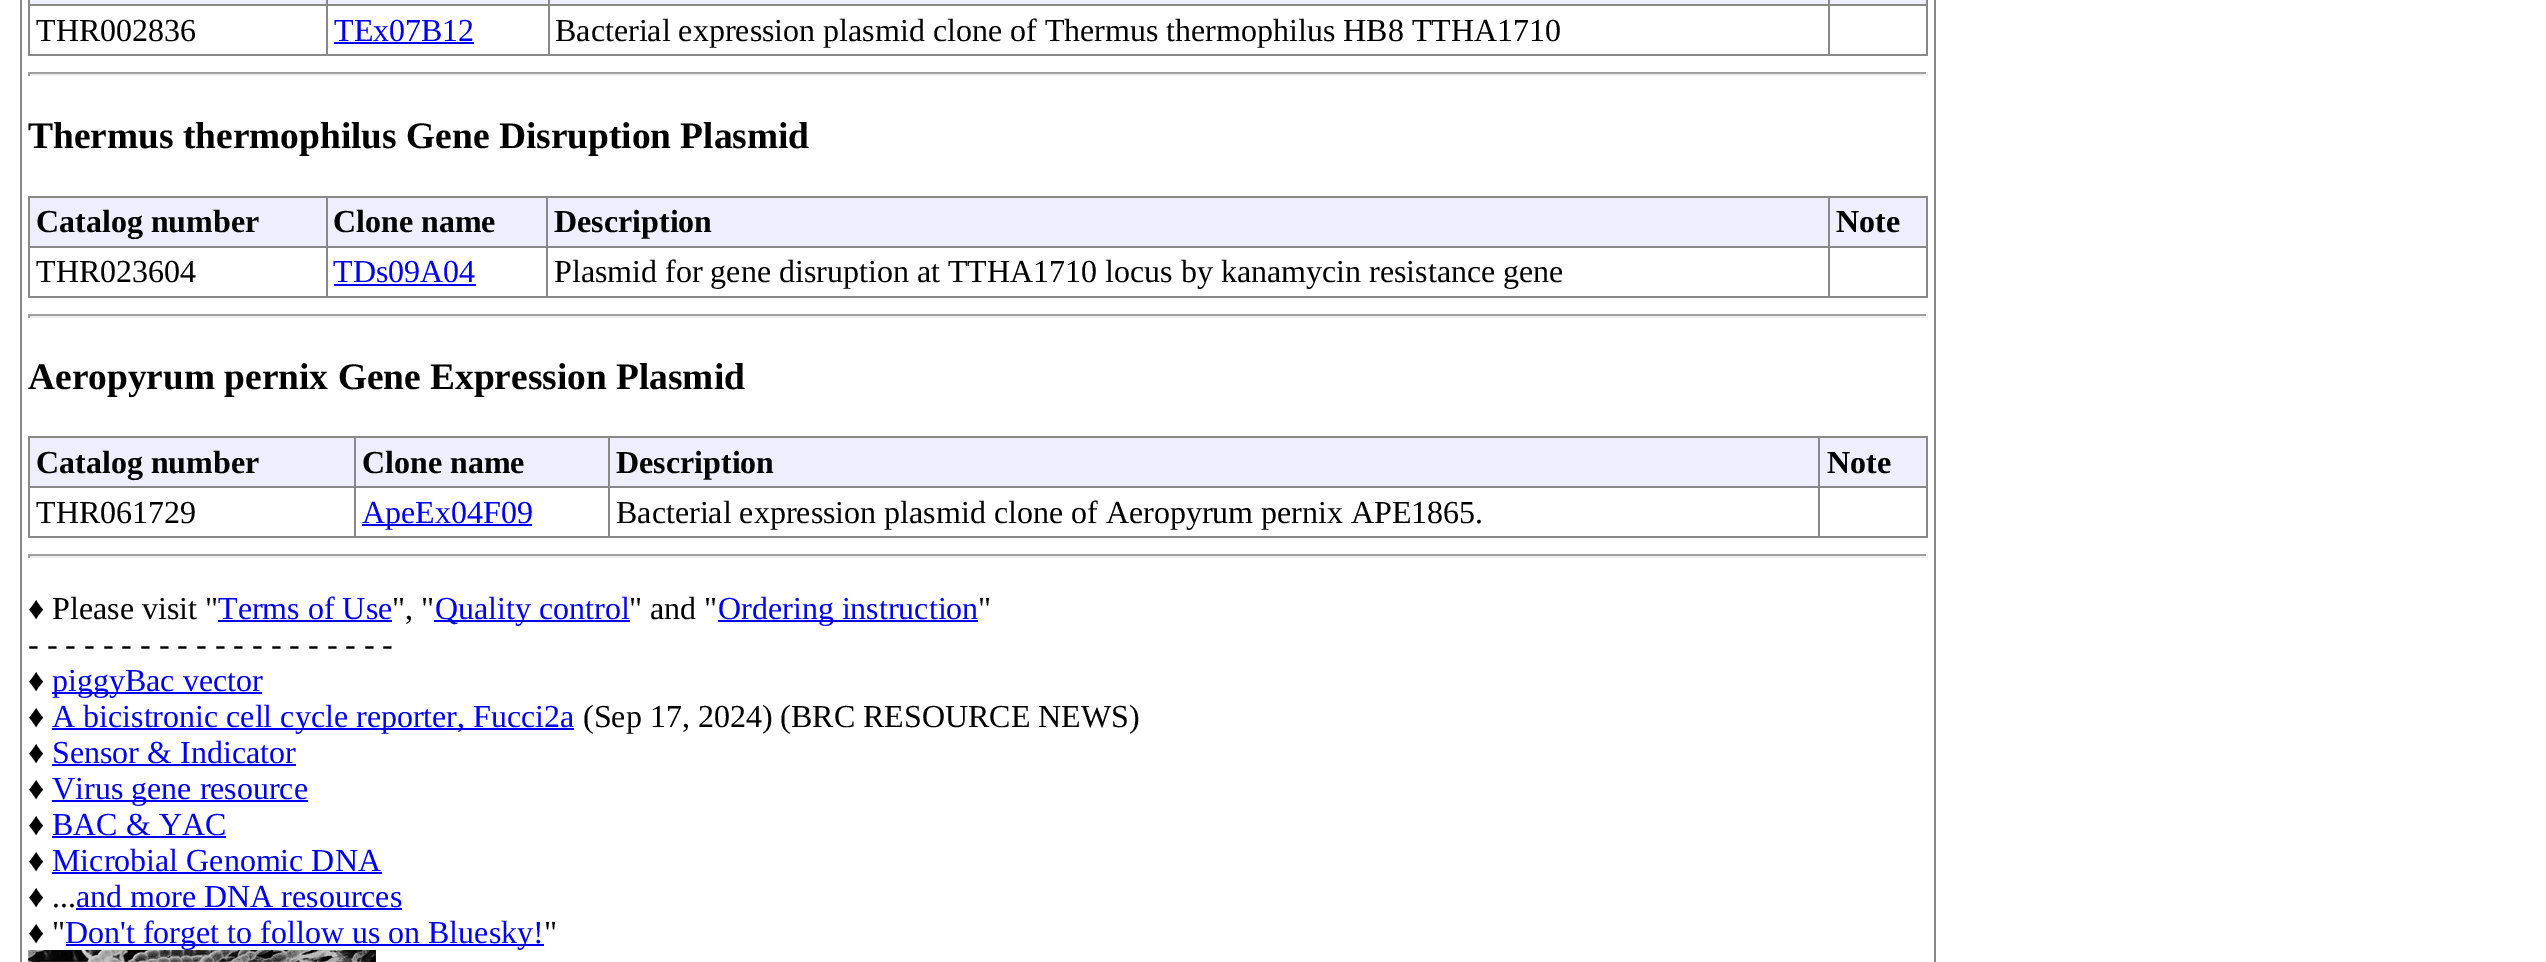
%!PS-Adobe-3.0
%%BoundingBox: 0 0 2546 962
%%LanguageLevel: 3
%%Pages: 1
%%EndComments
%%BeginProlog
/drawimage { 5 dict begin { /h /w /y /x /name } { exch def } forall
  gsave x y translate w h scale
  w h 8 [w 0 0 h 0 0] name (r) file false 3 colorimage grestore end } def
%%EndProlog
%%BeginSetup
<< /PageSize [2546 962] >> setpagedevice
%%EndSetup
%%Page: 1 1
0 962 translate 1 -1 scale
4 setmiterlimit
1 setgray
0 0 2546 962 rectfill
0.533 setgray
1934 0 2 962 rectfill
20 0 2 962 rectfill
0.933 0.933 1 setrgbcolor
30 0 1898 4 rectfill
0.533 setgray
1926 0 2 56 rectfill
28 54 1900 2 rectfill
28 0 2 56 rectfill
1828 4 100 2 rectfill
1828 4 2 52 rectfill
548 4 1282 2 rectfill
548 4 2 52 rectfill
326 4 224 2 rectfill
326 4 2 52 rectfill
28 4 300 2 rectfill
326 0 2 6 rectfill
548 0 2 6 rectfill
1828 0 2 6 rectfill
0 0 0.933 setrgbcolor
334 42 140 2 rectfill
0.624 setgray
28 72 1900 2 rectfill
0.933 setgray
1926 72 2 4 rectfill
28 74 1900 2 rectfill
0.624 setgray
28 72 2 4 rectfill
0.533 setgray
28 196 1900 2 rectfill
1926 196 2 102 rectfill
28 296 1900 2 rectfill
28 196 2 102 rectfill
0.933 0.933 1 setrgbcolor
30 198 296 48 rectfill
328 198 218 48 rectfill
0.533 setgray
1828 246 100 2 rectfill
1828 246 2 52 rectfill
546 246 1284 2 rectfill
546 246 2 52 rectfill
326 246 222 2 rectfill
326 246 2 52 rectfill
28 246 300 2 rectfill
326 196 2 52 rectfill
0.933 0.933 1 setrgbcolor
548 198 1280 48 rectfill
0.533 setgray
546 196 2 52 rectfill
0.933 0.933 1 setrgbcolor
1830 198 96 48 rectfill
0.533 setgray
1828 196 2 52 rectfill
0 0 0.933 setrgbcolor
334 284 142 2 rectfill
0.624 setgray
28 314 1900 2 rectfill
0.933 setgray
1926 314 2 4 rectfill
28 316 1900 2 rectfill
0.624 setgray
28 314 2 4 rectfill
0.533 setgray
28 436 1900 2 rectfill
1926 436 2 102 rectfill
28 536 1900 2 rectfill
28 436 2 102 rectfill
0.933 0.933 1 setrgbcolor
30 438 324 48 rectfill
356 438 252 48 rectfill
0.533 setgray
1818 486 110 2 rectfill
1818 486 2 52 rectfill
608 486 1212 2 rectfill
608 486 2 52 rectfill
354 486 256 2 rectfill
354 486 2 52 rectfill
28 486 328 2 rectfill
354 436 2 52 rectfill
0.933 0.933 1 setrgbcolor
610 438 1208 48 rectfill
0.533 setgray
608 436 2 52 rectfill
0.933 0.933 1 setrgbcolor
1820 438 106 48 rectfill
0.533 setgray
1818 436 2 52 rectfill
0 0 0.933 setrgbcolor
362 524 170 2 rectfill
0.624 setgray
28 554 1900 2 rectfill
0.933 setgray
1926 554 2 4 rectfill
28 556 1900 2 rectfill
0.624 setgray
28 554 2 4 rectfill
0 0 0.933 setrgbcolor
218 620 174 2 rectfill
434 620 196 2 rectfill
718 620 260 2 rectfill
52 692 210 2 rectfill
52 728 522 2 rectfill
52 764 244 2 rectfill
52 800 256 2 rectfill
52 836 174 2 rectfill
52 872 330 2 rectfill
76 908 326 2 rectfill
66 944 478 2 rectfill
(images/1.raw) 28 950 348 12 drawimage
/LiberationSerif-Regular [32 0 0 -32 0 0] selectfont
0 setgray
36 41 moveto (THR002836) show
0 0 0.933 setrgbcolor
334 41 moveto (TEx07B12) show
0 setgray
555 41 moveto (Bacterial expression plasmid clone of Thermus thermophilus HB8 TTHA1710) show
/LiberationSerif-Bold [37.4 0 0 -37.4 0 0] selectfont
28 148 moveto (Thermus thermophilus Gene Disruption Plasmid) show
/LiberationSerif-Bold [32 0 0 -32 0 0] selectfont
36 232 moveto (Catalog number) show
333 232 moveto (Clone name) show
554 232 moveto (Description) show
1836 232 moveto (Note) show
/LiberationSerif-Regular [32 0 0 -32 0 0] selectfont
36 282 moveto (THR023604) show
0 0 0.933 setrgbcolor
333 282 moveto (TDs09A04) show
0 setgray
554 282 moveto (Plasmid for gene disruption at TTHA1710 locus by kanamycin resistance gene) show
/LiberationSerif-Bold [37.4 0 0 -37.4 0 0] selectfont
28 389 moveto (Aeropyrum pernix Gene Expression Plasmid) show
/LiberationSerif-Bold [32 0 0 -32 0 0] selectfont
36 473 moveto (Catalog number) show
362 473 moveto (Clone name) show
616 473 moveto (Description) show
1827 473 moveto (Note) show
/LiberationSerif-Regular [32 0 0 -32 0 0] selectfont
36 523 moveto (THR061729) show
0 0 0.933 setrgbcolor
362 523 moveto (ApeEx04F09) show
0 setgray
616 523 moveto (Bacterial expression plasmid clone of Aeropyrum pernix APE1865.) show
28 619 moveto (♦ Please visit ") show
0 0 0.933 setrgbcolor
218 619 moveto (Terms of Use) show
0 setgray
392 619 moveto (", ") show
0 0 0.933 setrgbcolor
435 619 moveto (Quality control) show
0 setgray
629 619 moveto (" and ") show
0 0 0.933 setrgbcolor
718 619 moveto (Ordering instruction) show
0 setgray
978 619 moveto (") show
28 655 moveto (- - - - - - - - - - - - - - - - - - - -) show
28 691 moveto (♦) show
0 0 0.933 setrgbcolor
52 691 moveto (piggyBac vector) show
0 setgray
28 727 moveto (♦) show
0 0 0.933 setrgbcolor
52 727 moveto (A bicistronic cell cycle reporter, Fucci2a) show
0 setgray
583 727 moveto (\(Sep 17, 2024\) \(BRC RESOURCE NEWS\)) show
28 763 moveto (♦) show
0 0 0.933 setrgbcolor
52 763 moveto (Sensor & Indicator) show
0 setgray
28 799 moveto (♦) show
0 0 0.933 setrgbcolor
52 799 moveto (Virus gene resource) show
0 setgray
28 835 moveto (♦) show
0 0 0.933 setrgbcolor
52 835 moveto (BAC & YAC) show
0 setgray
28 871 moveto (♦) show
0 0 0.933 setrgbcolor
52 871 moveto (Microbial Genomic DNA) show
0 setgray
28 907 moveto (♦ ...) show
0 0 0.933 setrgbcolor
76 907 moveto (and more DNA resources) show
0 setgray
28 943 moveto (♦ ") show
0 0 0.933 setrgbcolor
65 943 moveto (Don't forget to follow us on Bluesky!) show
0 setgray
544 943 moveto (") show
showpage
%%EOF
